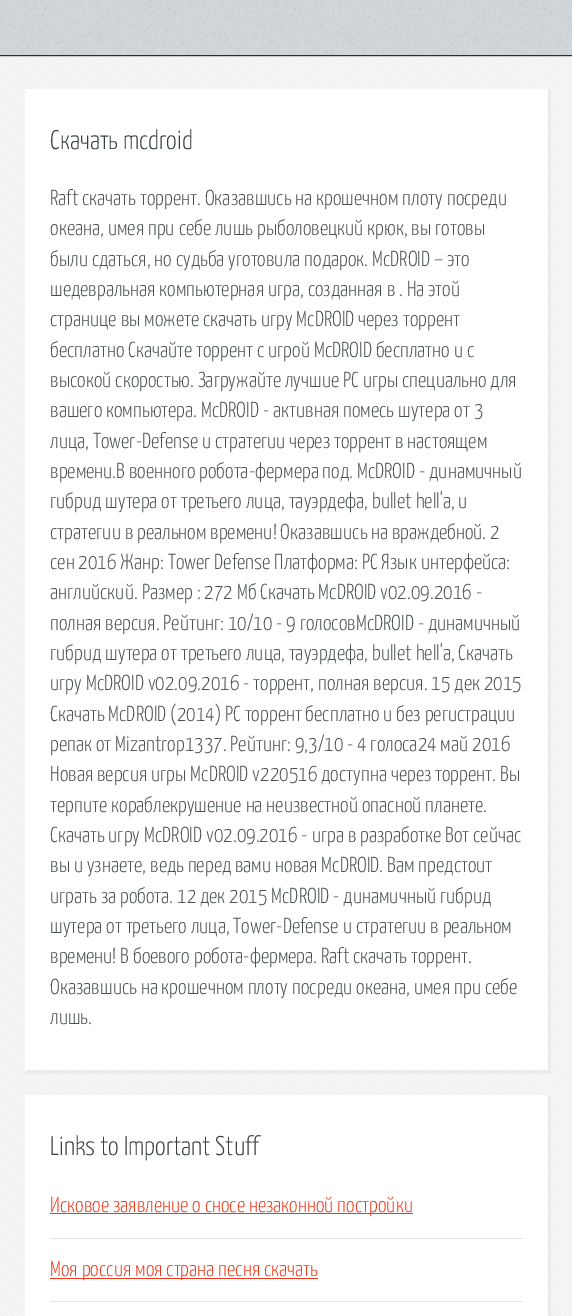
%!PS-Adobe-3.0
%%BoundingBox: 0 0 572 1316
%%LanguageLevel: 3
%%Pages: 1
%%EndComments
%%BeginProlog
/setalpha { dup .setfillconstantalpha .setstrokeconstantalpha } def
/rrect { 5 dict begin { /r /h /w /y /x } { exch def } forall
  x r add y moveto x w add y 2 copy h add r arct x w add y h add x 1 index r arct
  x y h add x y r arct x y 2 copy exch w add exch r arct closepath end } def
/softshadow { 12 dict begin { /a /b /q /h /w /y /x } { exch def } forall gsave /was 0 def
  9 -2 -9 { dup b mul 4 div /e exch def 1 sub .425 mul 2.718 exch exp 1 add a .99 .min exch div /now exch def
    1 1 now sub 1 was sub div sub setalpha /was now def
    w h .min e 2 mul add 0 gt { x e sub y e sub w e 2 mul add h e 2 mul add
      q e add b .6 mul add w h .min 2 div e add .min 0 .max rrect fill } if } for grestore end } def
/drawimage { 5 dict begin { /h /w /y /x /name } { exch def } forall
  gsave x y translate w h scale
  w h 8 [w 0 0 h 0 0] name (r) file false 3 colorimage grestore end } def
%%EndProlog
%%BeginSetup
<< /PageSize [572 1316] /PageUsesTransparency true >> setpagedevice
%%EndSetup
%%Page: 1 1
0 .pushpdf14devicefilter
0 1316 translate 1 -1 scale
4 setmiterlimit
1 setgray
0 0 572 1316 rectfill
(images/1.raw) 0 0 572 55 drawimage
(images/2.raw) 0 56 572 1 drawimage
0.153 0.176 0.188 setrgbcolor
0 55 572 1 rectfill
0.969 setgray
0 57 572 1259 rectfill
(images/3.raw) 0 57 572 1259 drawimage
0.502 setgray
26 90 525 984 0 1 0.1 softshadow
1 setgray
25 89 523 981 rectfill
0.502 setgray
26 1096 525 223 0 1 0.1 softshadow
1 setgray
25 1095 523 221 rectfill
0.886 0.902 0.91 setrgbcolor
50 1238 473 1 rectfill
0.929 0.224 0.106 setrgbcolor
50 1213 363 1 rectfill
0.886 0.902 0.91 setrgbcolor
50 1301 473 1 rectfill
0.929 0.224 0.106 setrgbcolor
50 1278 268 1 rectfill
/YanoneKaffeesatz-Light [27 0 0 -27 0 0] selectfont
0.216 0.247 0.259 setrgbcolor
50 149 moveto (Скачать mcdroid) show
/YanoneKaffeesatz-Light [21.7 0 0 -21.7 0 0] selectfont
0.278 0.31 0.318 setrgbcolor
50 205 moveto (Raft скачать торрент. Оказавшись на крошечном плоту посреди) show
50 235 moveto (океана, имея при себе лишь рыболовецкий крюк, вы готовы) show
50 266 moveto (были сдаться, но судьба уготовила подарок. McDROID – это) show
50 296 moveto (шедевральная компьютерная игра, созданная в . На этой) show
50 326 moveto (странице вы можете скачать игру McDROID через торрент) show
50 357 moveto (бесплатно Скачайте торрент с игрой McDROID бесплатно и с) show
50 387 moveto (высокой скоростью. Загружайте лучшие PC игры специально для) show
50 417 moveto (вашего компьютера. McDROID - активная помесь шутера от 3) show
50 448 moveto (лица, Tower-Defense и стратегии через торрент в настоящем) show
50 478 moveto (времени.В военного робота-фермера под. McDROID - динамичный) show
50 508 moveto (гибрид шутера от третьего лица, тауэрдефа, bullet hell'а, и) show
50 539 moveto (стратегии в реальном времени! Оказавшись на враждебной. 2) show
50 569 moveto (сен 2016 Жанр: Tower Defense Платформа: PC Язык интерфейса:) show
50 599 moveto (английский. Размер : 272 Мб Скачать McDROID v02.09.2016 -) show
50 630 moveto (полная версия. Рейтинг: 10/10 - 9 голосовMcDROID - динамичный) show
50 660 moveto (гибрид шутера от третьего лица, тауэрдефа, bullet hell'а, Скачать) show
50 690 moveto (игру McDROID v02.09.2016 - торрент, полная версия. 15 дек 2015) show
50 721 moveto (Скачать McDROID \(2014\) PC торрент бесплатно и без регистрации) show
50 751 moveto (репак от Mizantrop1337. Рейтинг: 9,3/10 - 4 голоса24 май 2016) show
50 781 moveto (Новая версия игры McDROID v220516 доступна через торрент. Вы) show
50 812 moveto (терпите кораблекрушение на неизвестной опасной планете.) show
50 842 moveto (Скачать игру McDROID v02.09.2016 - игра в разработке Вот сейчас) show
50 872 moveto (вы и узнаете, ведь перед вами новая McDROID. Вам предстоит) show
50 903 moveto (играть за робота. 12 дек 2015 McDROID - динамичный гибрид) show
50 933 moveto (шутера от третьего лица, Tower-Defense и стратегии в реальном) show
50 963 moveto (времени! В боевого робота-фермера. Raft скачать торрент.) show
50 994 moveto (Оказавшись на крошечном плоту посреди океана, имея при себе) show
50 1024 moveto (лишь.) show
/YanoneKaffeesatz-Light [27 0 0 -27 0 0] selectfont
0.216 0.247 0.259 setrgbcolor
50 1155 moveto (Links to Important Stuff) show
/YanoneKaffeesatz-Light [21.7 0 0 -21.7 0 0] selectfont
0.929 0.224 0.106 setrgbcolor
50 1212 moveto (Исковое заявление о сносе незаконной постройки) show
50 1276 moveto (Моя россия моя страна песня скачать) show
.poppdf14devicefilter showpage
%%EOF
